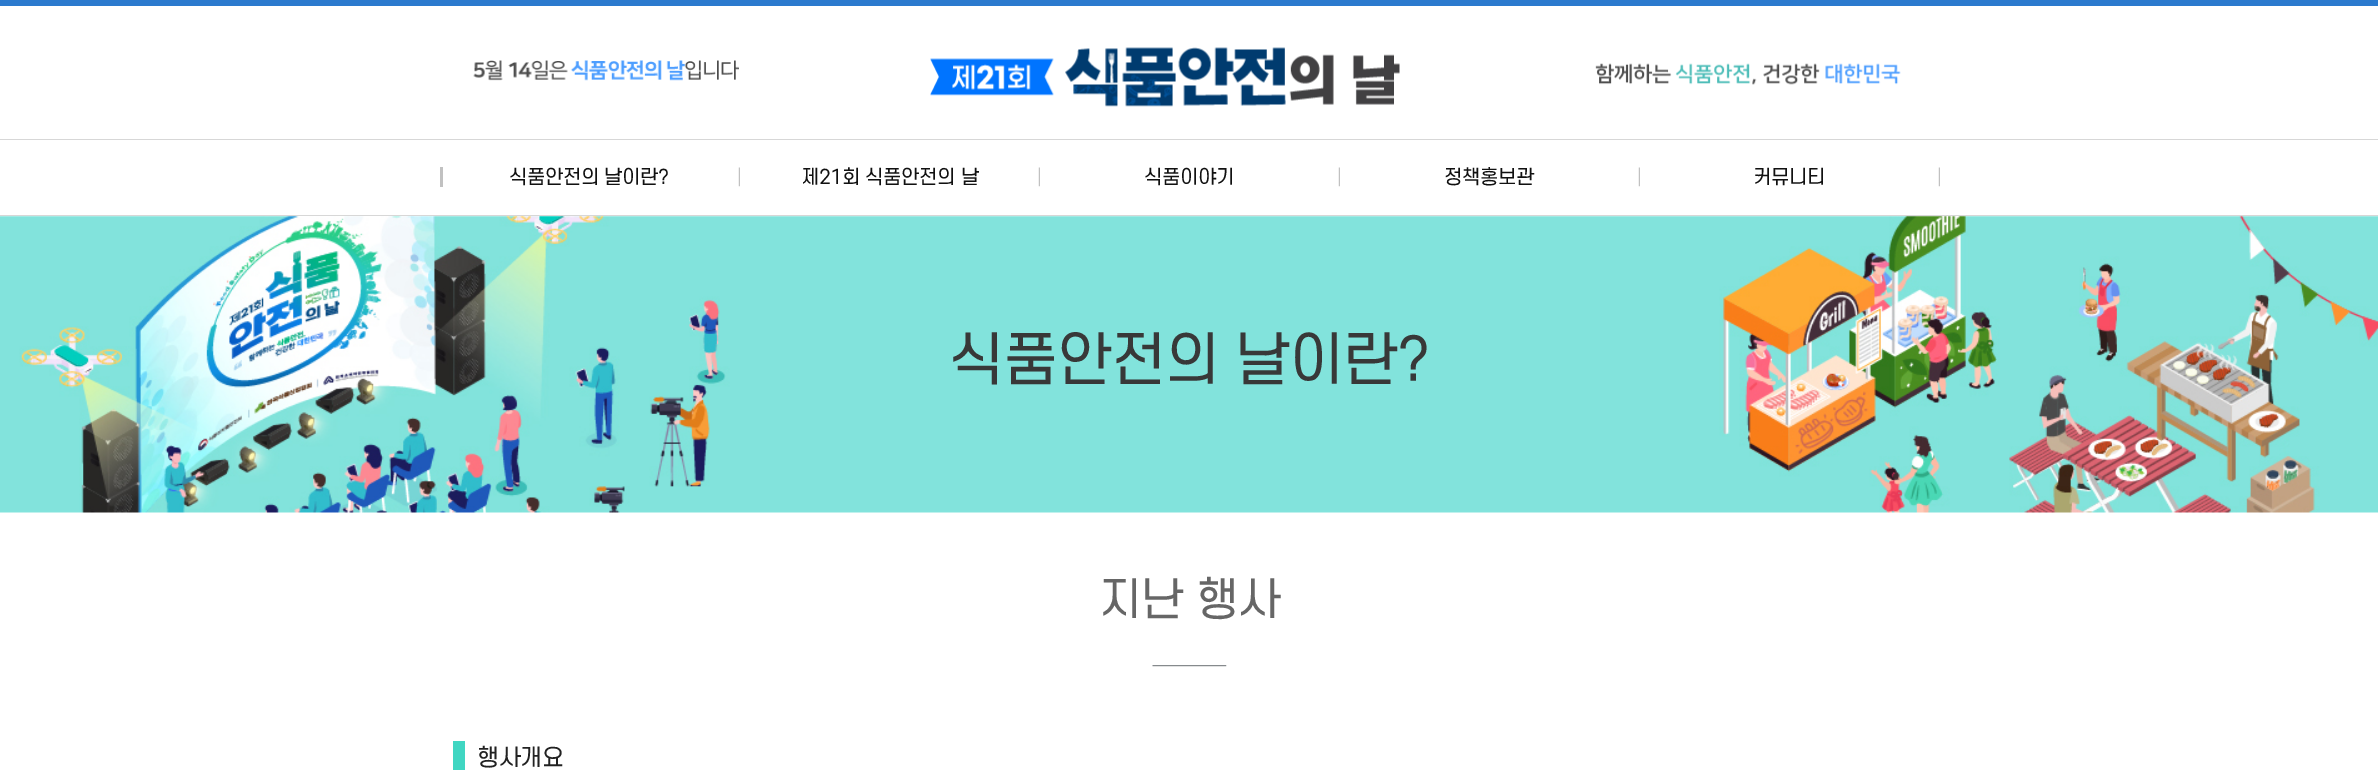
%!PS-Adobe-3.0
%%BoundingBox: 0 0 2378 770
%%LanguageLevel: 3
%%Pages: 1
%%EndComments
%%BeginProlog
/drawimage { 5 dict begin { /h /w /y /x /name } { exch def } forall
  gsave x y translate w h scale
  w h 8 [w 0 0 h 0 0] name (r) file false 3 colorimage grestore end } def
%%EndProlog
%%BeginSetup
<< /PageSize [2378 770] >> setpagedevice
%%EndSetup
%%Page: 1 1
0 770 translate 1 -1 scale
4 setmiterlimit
1 setgray
0 0 2378 770 rectfill
0.169 0.478 0.808 setrgbcolor
0 0 2378 6 rectfill
0.843 setgray
0 215 2378 1 rectfill
(images/1.raw) 473 60 266 21 drawimage
(images/2.raw) 930 47 470 60 drawimage
(images/3.raw) 1595 63 306 22 drawimage
0 139 2378 1 rectfill
0.757 setgray
440 167 3 20 rectfill
(images/4.raw) 738 167 2 20 drawimage
(images/4.raw) 1038 167 2 20 drawimage
(images/4.raw) 1338 167 2 20 drawimage
(images/4.raw) 1638 167 2 20 drawimage
(images/4.raw) 1938 167 2 20 drawimage
(images/5.raw) 0 216 2378 297 drawimage
(images/6.raw) 1152 665 75 2 drawimage
0.251 0.839 0.761 setrgbcolor
453 741 12 29 rectfill
/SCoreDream-Bold [18.75 0 0 -18.75 0 0] selectfont
0.067 setgray
509 184 moveto (식품안전의 날이란?) show
801 184 moveto (제21회 식품안전의 날) show
1144 184 moveto (식품이야기) show
1444 184 moveto (정책홍보관) show
1753 184 moveto (커뮤니티) show
/SCoreDream-Bold [56.25 0 0 -56.25 0 0] selectfont
0.22 setgray
949 381 moveto (식품안전의 날이란?) show
/SCoreDream-Bold [43.75 0 0 -43.75 0 0] selectfont
0.4 setgray
1099 616 moveto (지난 행사) show
/SCoreDream-Bold [22.5 0 0 -22.5 0 0] selectfont
0.133 setgray
477 766 moveto (행사개요) show
showpage
%%EOF
